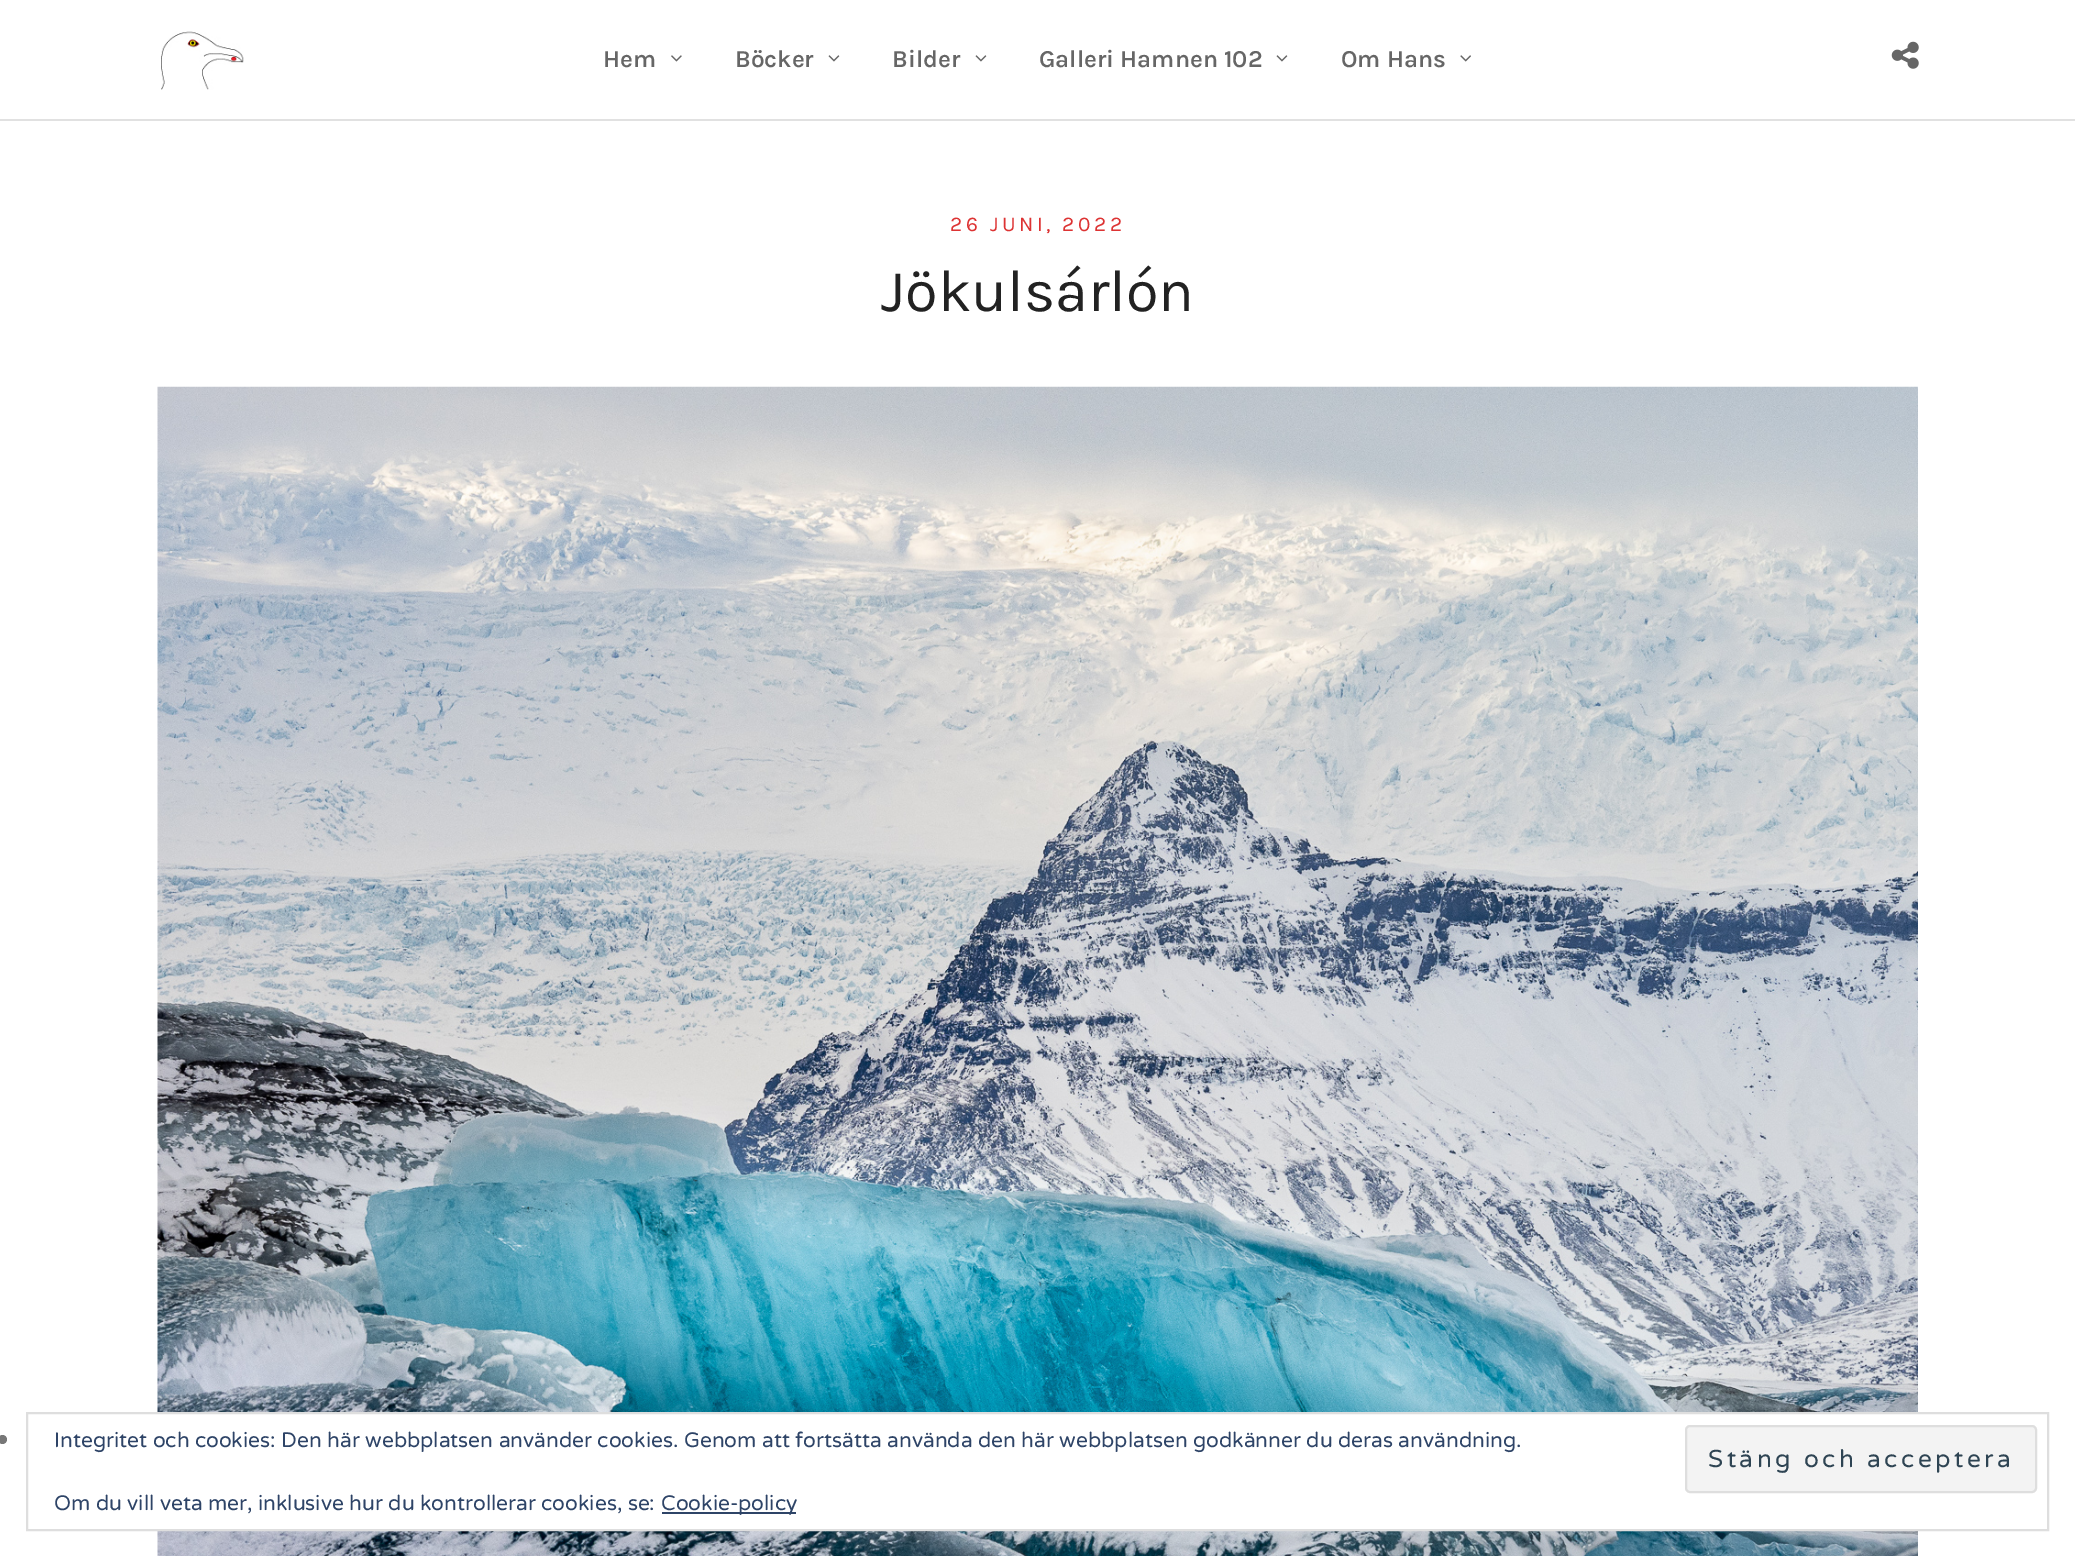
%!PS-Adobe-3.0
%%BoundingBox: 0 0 2075 1556
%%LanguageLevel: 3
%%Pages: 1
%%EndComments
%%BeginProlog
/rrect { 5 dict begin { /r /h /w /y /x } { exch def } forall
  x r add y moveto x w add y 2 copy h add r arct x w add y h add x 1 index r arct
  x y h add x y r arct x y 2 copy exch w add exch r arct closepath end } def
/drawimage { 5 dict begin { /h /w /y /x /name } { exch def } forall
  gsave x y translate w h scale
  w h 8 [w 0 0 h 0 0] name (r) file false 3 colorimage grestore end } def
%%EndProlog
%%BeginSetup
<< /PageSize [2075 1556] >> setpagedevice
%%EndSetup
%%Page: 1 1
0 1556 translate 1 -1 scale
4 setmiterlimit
1 setgray
0 0 2075 1556 rectfill
0.882 setgray
0 119 2075 2 rectfill
(images/1.raw) 161 31 83 59 drawimage
(images/2.raw) 671 55 11 7 drawimage
(images/3.raw) 828 55 12 7 drawimage
(images/3.raw) 975 55 12 7 drawimage
(images/3.raw) 1276 55 12 7 drawimage
(images/4.raw) 1460 55 11 7 drawimage
(images/5.raw) 1891 41 28 28 drawimage
(images/6.raw) 157 386 1761 1170 drawimage
0.467 setgray
newpath 2.5 1439.5 4.5 0 360 arc closepath fill
1 setgray
157 1414 1761 115 rectfill
0.871 setgray
2 setlinewidth
27 1413 2021 117 rectstroke
0.953 setgray
1686 1426 350 66 4 rrect gsave fill grestore
0.871 setgray
stroke
0.18 0.267 0.404 setrgbcolor
662 1512 134 2 rectfill
/Karla-SemiBold [24.5 0 0 -24.5 0 0] selectfont
0.4 setgray
603 67 moveto (Hem) show
735 67 moveto (Böcker) show
892 67 moveto (Bilder) show
1039 67 moveto (Galleri Hamnen 102) show
1341 67 moveto (Om Hans) show
/Karla-Regular [21 0 0 -21 0 0] selectfont
0.867 0.2 0.2 setrgbcolor
950 231 moveto 3.5 0 (26 JUNI, 2022) ashow
/Karla-Regular [59.5 0 0 -59.5 0 0] selectfont
0.133 setgray
881 311 moveto (Jökulsárlón) show
/VarelaRound-Regular [21 0 0 -21 0 0] selectfont
0.18 0.267 0.404 setrgbcolor
54 1447 moveto (Integritet och cookies: Den här webbplatsen använder cookies. Genom att fortsätta använda den här webbplatsen godkänner du deras användning.) show
/VarelaRound-Regular [24.5 0 0 -24.5 0 0] selectfont
0.18 0.267 0.325 setrgbcolor
1708 1467 moveto 3.5 0 (Stäng och acceptera) ashow
/VarelaRound-Regular [21 0 0 -21 0 0] selectfont
0.18 0.267 0.404 setrgbcolor
54 1510 moveto (Om du vill veta mer, inklusive hur du kontrollerar cookies, se:) show
661 1510 moveto (Cookie-policy) show
showpage
%%EOF
